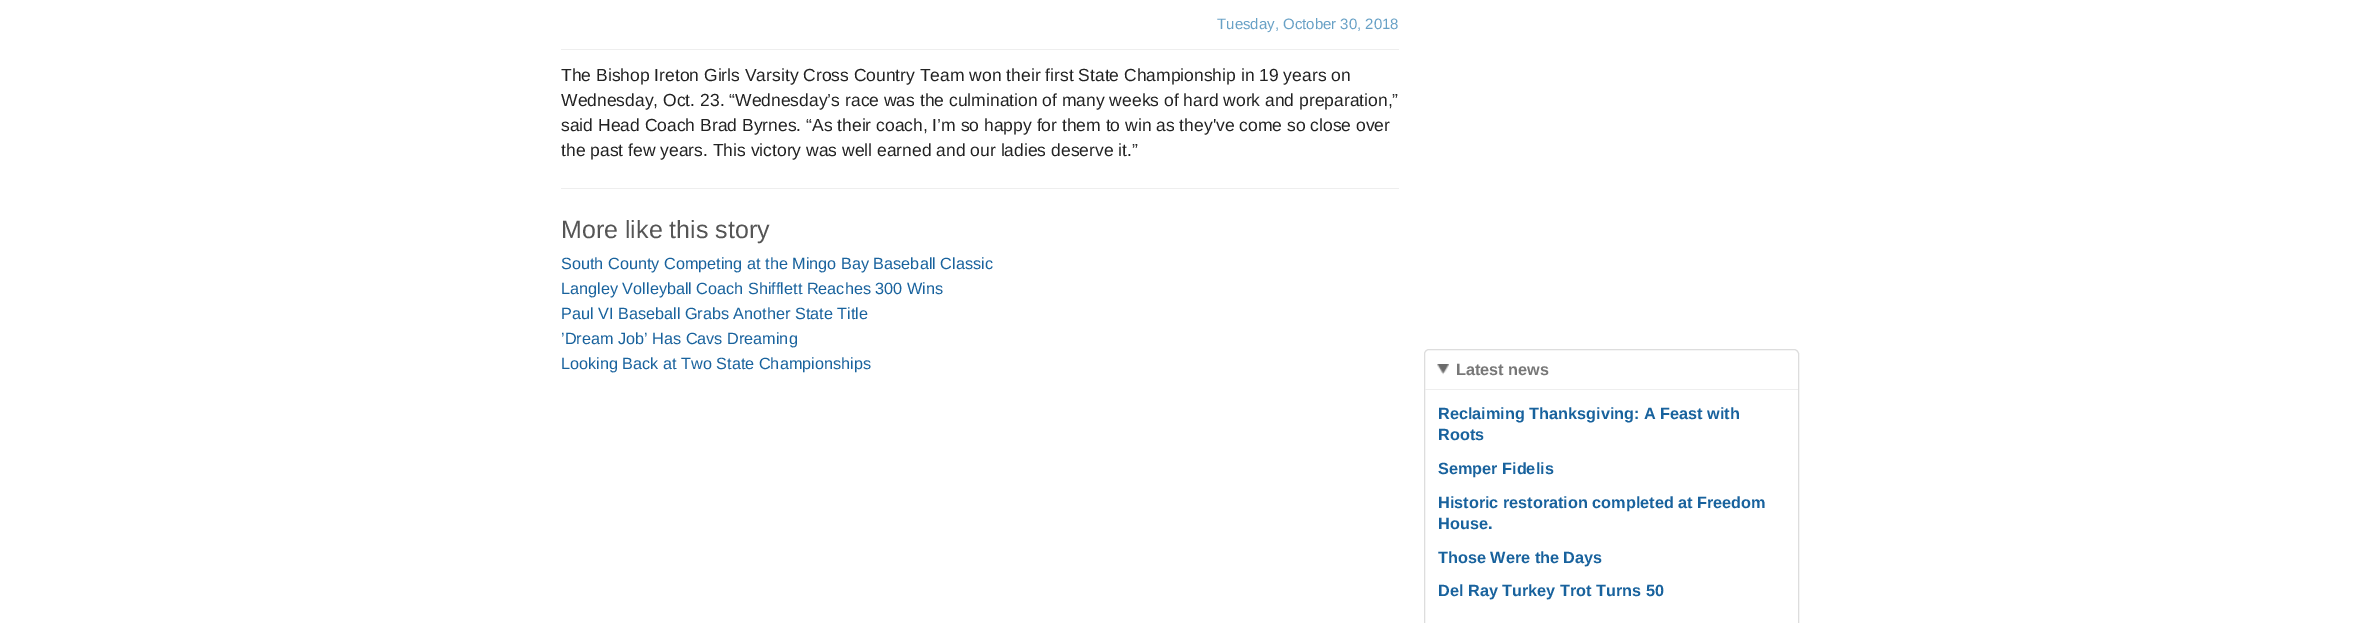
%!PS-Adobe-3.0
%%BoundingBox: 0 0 2360 623
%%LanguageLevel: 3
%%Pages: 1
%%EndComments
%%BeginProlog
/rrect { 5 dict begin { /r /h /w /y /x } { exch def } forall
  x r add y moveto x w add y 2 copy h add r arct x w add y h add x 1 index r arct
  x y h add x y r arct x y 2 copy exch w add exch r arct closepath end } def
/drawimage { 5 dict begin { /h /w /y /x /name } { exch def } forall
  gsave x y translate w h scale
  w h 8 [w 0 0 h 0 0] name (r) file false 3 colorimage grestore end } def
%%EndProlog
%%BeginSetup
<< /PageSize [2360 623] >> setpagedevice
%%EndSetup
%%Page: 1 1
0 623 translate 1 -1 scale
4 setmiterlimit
1 setgray
0 0 2360 623 rectfill
0.933 setgray
561 49 838 1 rectfill
561 188 838 1 rectfill
0.867 setgray
1424.5 349.5 374 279 4.5 rrect stroke
(images/1.raw) 1437 364 12 11 drawimage
0.933 setgray
1425 389 373 1 rectfill
/LiberationSans-Regular [15 0 0 -15 0 0] selectfont
0.408 0.631 0.776 setrgbcolor
1217 29 moveto (Tuesday, October 30, 2018) show
/LiberationSans-Regular [17.5 0 0 -17.5 0 0] selectfont
0.133 setgray
561 81 moveto (The Bishop Ireton Girls Varsity Cross Country Team won their first State Championship in 19 years on) show
561 106 moveto (Wednesday, Oct. 23. “Wednesday’s race was the culmination of many weeks of hard work and preparation,”) show
561 131 moveto (said Head Coach Brad Byrnes. “As their coach, I’m so happy for them to win as they've come so close over) show
561 156 moveto (the past few years. This victory was well earned and our ladies deserve it.”) show
/LiberationSans-Regular [25 0 0 -25 0 0] selectfont
0.333 setgray
561 238 moveto (More like this story) show
/LiberationSans-Regular [16.25 0 0 -16.25 0 0] selectfont
0.094 0.384 0.616 setrgbcolor
561 269 moveto (South County Competing at the Mingo Bay Baseball Classic) show
561 294 moveto (Langley Volleyball Coach Shifflett Reaches 300 Wins) show
561 319 moveto (Paul VI Baseball Grabs Another State Title) show
561 344 moveto (’Dream Job’ Has Cavs Dreaming) show
561 369 moveto (Looking Back at Two State Championships) show
/LiberationSans-Bold [16.25 0 0 -16.25 0 0] selectfont
0.467 setgray
1456 375 moveto (Latest news) show
0.094 0.384 0.616 setrgbcolor
1438 419 moveto (Reclaiming Thanksgiving: A Feast with) show
1438 440 moveto (Roots) show
1438 474 moveto (Semper Fidelis) show
1438 508 moveto (Historic restoration completed at Freedom) show
1438 529 moveto (House.) show
1438 563 moveto (Those Were the Days) show
1438 596 moveto (Del Ray Turkey Trot Turns 50) show
showpage
%%EOF
